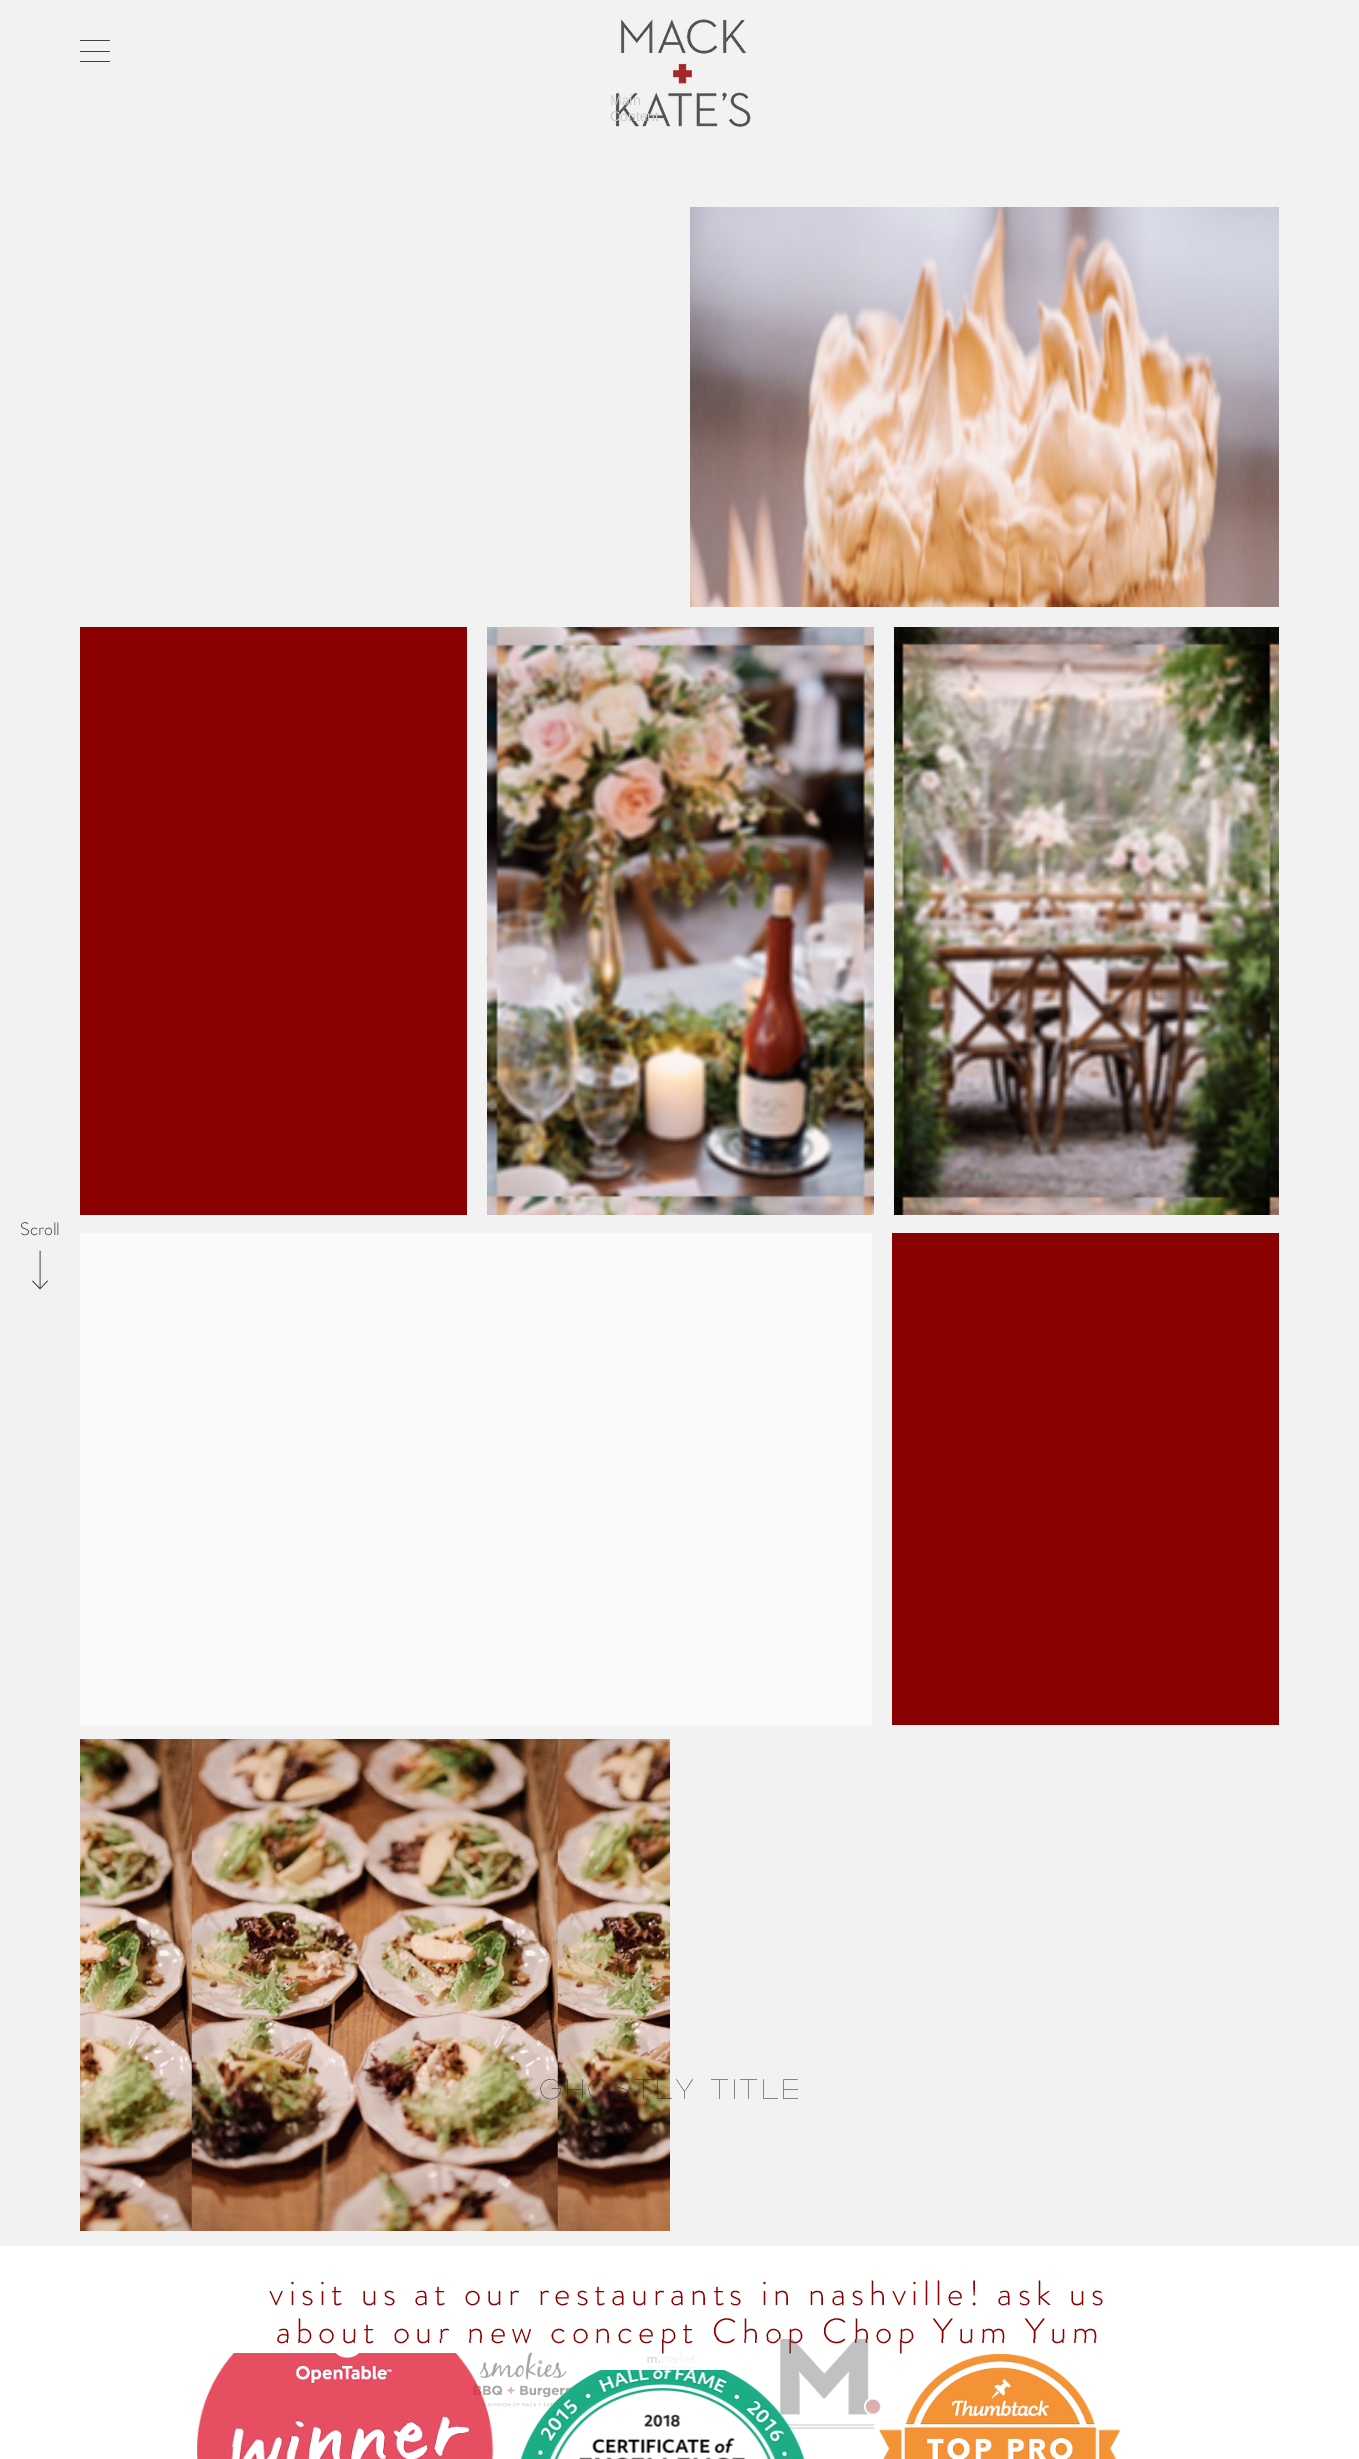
%!PS-Adobe-3.0
%%BoundingBox: 0 0 1359 2459
%%LanguageLevel: 3
%%Pages: 1
%%EndComments
%%BeginProlog
/drawimage { 5 dict begin { /h /w /y /x /name } { exch def } forall
  gsave x y translate w h scale
  w h 8 [w 0 0 h 0 0] name (r) file false 3 colorimage grestore end } def
%%EndProlog
%%BeginSetup
<< /PageSize [1359 2459] >> setpagedevice
%%EndSetup
%%Page: 1 1
0 2459 translate 1 -1 scale
4 setmiterlimit
0.949 setgray
0 0 1359 2459 rectfill
(images/1.raw) 80 40 30 22 drawimage
(images/2.raw) 615 19 136 108 drawimage
(images/3.raw) 32 1250 16 40 drawimage
(images/4.raw) 690 207 589 400 drawimage
0.545 0 0 setrgbcolor
80 627 387 588 rectfill
(images/5.raw) 487 627 387 588 drawimage
(images/6.raw) 894 627 385 588 drawimage
0.98 setgray
80 1233 792 492 rectfill
0.545 0 0 setrgbcolor
892 1233 387 492 rectfill
(images/7.raw) 80 1739 590 492 drawimage
1 setgray
0 2246 1359 213 rectfill
/LiberationSans-Regular [14 0 0 -14 0 0] selectfont
0.796 0.8 0.804 setrgbcolor
610 105 moveto (Main) show
610 121 moveto (Content) show
/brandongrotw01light-Light [18 0 0 -18 0 0] selectfont
0.212 setgray
20 1235 moveto (Scroll) show
/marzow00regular-Regular [28 0 0 -28 0 0] selectfont
0.161 setgray
540 2099 moveto 4.25 0 (GHOSTLY TITLE) ashow
/brandongrotw01light-Light [35 0 0 -35 0 0] selectfont
0.545 0 0 setrgbcolor
269 2305 moveto 5.25 0 (visit us at our restaurants in nashville! ask us) ashow
276 2343 moveto 5.25 0 (about our new concept Chop Chop Yum Yum) ashow
(images/8.raw) 197 2339 924 120 drawimage
showpage
%%EOF
